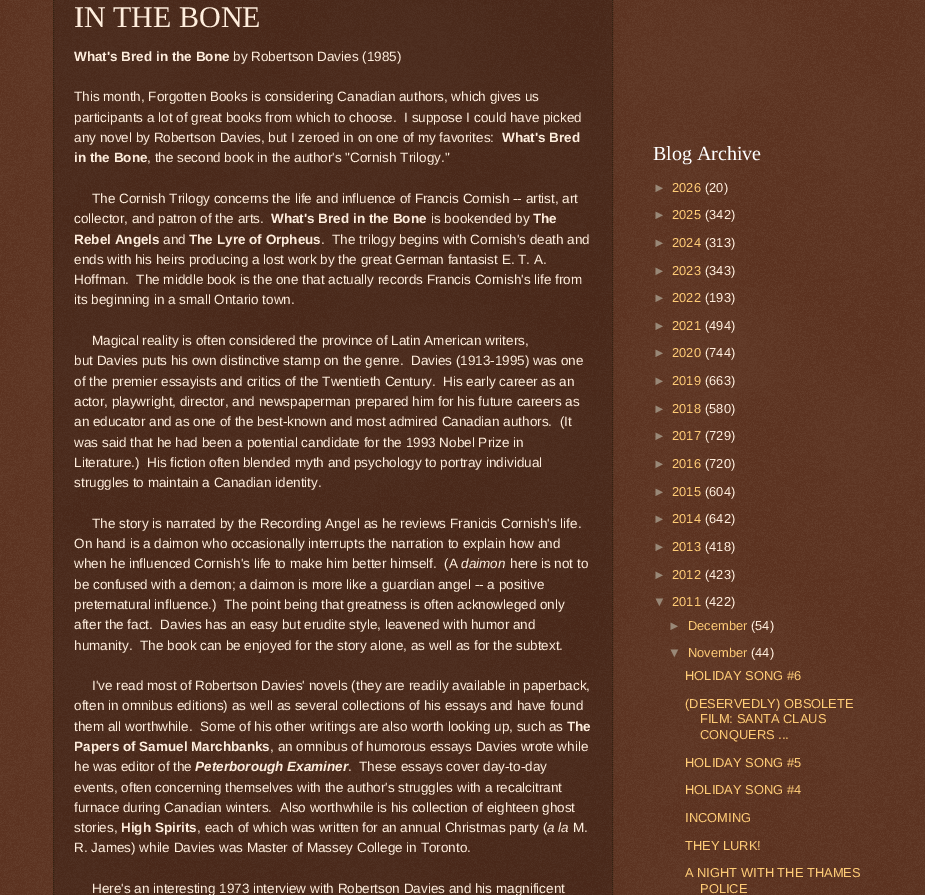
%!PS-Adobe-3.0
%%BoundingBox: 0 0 925 895
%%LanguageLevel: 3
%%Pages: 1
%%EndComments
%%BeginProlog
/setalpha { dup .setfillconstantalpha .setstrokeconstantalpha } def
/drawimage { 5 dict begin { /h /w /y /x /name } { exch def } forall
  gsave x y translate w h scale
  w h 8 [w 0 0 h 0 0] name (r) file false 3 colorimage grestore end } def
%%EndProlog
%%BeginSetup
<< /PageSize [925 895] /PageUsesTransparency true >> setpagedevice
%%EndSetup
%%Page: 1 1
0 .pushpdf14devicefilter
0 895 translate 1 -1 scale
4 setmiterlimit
0.267 0.082 0 setrgbcolor
0 0 925 895 rectfill
(images/1.raw) 0 0 925 895 drawimage
0.2 setalpha
0 setgray
53 0 560 895 rectfill
1 setalpha
0.2 0.133 0.067 setrgbcolor
[1 1] 0 setdash
newpath 612.5 -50 moveto 612.5 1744 lineto stroke
newpath 53.5 -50 moveto 53.5 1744 lineto stroke
/LiberationSerif-Regular [30 0 0 -30 0 0] selectfont
1 0.933 0.867 setrgbcolor
74 27 moveto (IN THE BONE) show
/LiberationSans-Bold [13.5 0 0 -13.5 0 0] selectfont
74 61 moveto (What's Bred in the Bone) show
/LiberationSans-Regular [13.5 0 0 -13.5 0 0] selectfont
233 61 moveto (by Robertson Davies \(1985\)) show
74 101 moveto (This month, Forgotten Books is considering Canadian authors, which gives us) show
74 122 moveto (participants a lot of great books from which to choose.  I suppose I could have picked) show
74 142 moveto (any novel by Robertson Davies, but I zeroed in on one of my favorites:) show
/LiberationSans-Bold [13.5 0 0 -13.5 0 0] selectfont
502 142 moveto (What's Bred) show
74 162 moveto (in the Bone) show
/LiberationSans-Regular [13.5 0 0 -13.5 0 0] selectfont
147 162 moveto (, the second book in the author's "Cornish Trilogy.") show
92 203 moveto (The Cornish Trilogy concerns the life and influence of Francis Cornish -- artist, art) show
74 223 moveto (collector, and patron of the arts.) show
/LiberationSans-Bold [13.5 0 0 -13.5 0 0] selectfont
271 223 moveto (What's Bred in the Bone) show
/LiberationSans-Regular [13.5 0 0 -13.5 0 0] selectfont
431 223 moveto (is bookended by) show
/LiberationSans-Bold [13.5 0 0 -13.5 0 0] selectfont
533 223 moveto (The) show
74 244 moveto (Rebel Angels) show
/LiberationSans-Regular [13.5 0 0 -13.5 0 0] selectfont
163 244 moveto (and) show
/LiberationSans-Bold [13.5 0 0 -13.5 0 0] selectfont
189 244 moveto (The Lyre of Orpheus) show
/LiberationSans-Regular [13.5 0 0 -13.5 0 0] selectfont
321 244 moveto (.  The trilogy begins with Cornish's death and) show
74 264 moveto (ends with his heirs producing a lost work by the great German fantasist E. T. A.) show
74 284 moveto (Hoffman.  The middle book is the one that actually records Francis Cornish's life from) show
74 304 moveto (its beginning in a small Ontario town.) show
92 345 moveto (Magical reality is often considered the province of Latin American writers,) show
74 365 moveto (but Davies puts his own distinctive stamp on the genre.  Davies \(1913-1995\) was one) show
74 386 moveto (of the premier essayists and critics of the Twentieth Century.  His early career as an) show
74 406 moveto (actor, playwright, director, and newspaperman prepared him for his future careers as) show
74 426 moveto (an educator and as one of the best-known and most admired Canadian authors.  \(It) show
74 447 moveto (was said that he had been a potential candidate for the 1993 Nobel Prize in) show
74 467 moveto (Literature.\)  His fiction often blended myth and psychology to portray individual) show
74 487 moveto (struggles to maintain a Canadian identity.) show
92 528 moveto (The story is narrated by the Recording Angel as he reviews Franicis Cornish's life.) show
74 548 moveto (On hand is a daimon who occasionally interrupts the narration to explain how and) show
74 568 moveto (when he influenced Cornish's life to make him better himself.  \(A) show
/LiberationSans-Italic [13.5 0 0 -13.5 0 0] selectfont
461 568 moveto (daimon) show
/LiberationSans-Regular [13.5 0 0 -13.5 0 0] selectfont
510 568 moveto (here is not to) show
74 589 moveto (be confused with a demon; a daimon is more like a guardian angel -- a positive) show
74 609 moveto (preternatural influence.\)  The point being that greatness is often acknowleged only) show
74 629 moveto (after the fact.  Davies has an easy but erudite style, leavened with humor and) show
74 650 moveto (humanity.  The book can be enjoyed for the story alone, as well as for the subtext.) show
92 690 moveto (I've read most of Robertson Davies' novels \(they are readily available in paperback,) show
74 710 moveto (often in omnibus editions\) as well as several collections of his essays and have found) show
74 731 moveto (them all worthwhile.  Some of his other writings are also worth looking up, such as) show
/LiberationSans-Bold [13.5 0 0 -13.5 0 0] selectfont
567 731 moveto (The) show
74 751 moveto (Papers of Samuel Marchbanks) show
/LiberationSans-Regular [13.5 0 0 -13.5 0 0] selectfont
270 751 moveto (, an omnibus of humorous essays Davies wrote while) show
74 771 moveto (he was editor of the) show
/LiberationSans-BoldItalic [13.5 0 0 -13.5 0 0] selectfont
195 771 moveto (Peterborough Examiner) show
/LiberationSans-Regular [13.5 0 0 -13.5 0 0] selectfont
348 771 moveto (.  These essays cover day-to-day) show
74 792 moveto (events, often concerning themselves with the author's struggles with a recalcitrant) show
74 812 moveto (furnace during Canadian winters.  Also worthwhile is his collection of eighteen ghost) show
74 832 moveto (stories,) show
/LiberationSans-Bold [13.5 0 0 -13.5 0 0] selectfont
121 832 moveto (High Spirits) show
/LiberationSans-Regular [13.5 0 0 -13.5 0 0] selectfont
197 832 moveto (, each of which was written for an annual Christmas party \() show
/LiberationSans-Italic [13.5 0 0 -13.5 0 0] selectfont
547 832 moveto (a la) show
/LiberationSans-Regular [13.5 0 0 -13.5 0 0] selectfont
573 832 moveto (M.) show
74 852 moveto (R. James\) while Davies was Master of Massey College in Toronto.) show
92 893 moveto (Here's an interesting 1973 interview with Robertson Davies and his magnificent) show
/LiberationSerif-Regular [20 0 0 -20 0 0] selectfont
1 setgray
653 160 moveto (Blog Archive) show
/LiberationSans-Regular [12.9 0 0 -12.9 0 0] selectfont
0.6 0.533 0.467 setrgbcolor
653 192 moveto (►) show
1 0.8 0.467 setrgbcolor
672 192 moveto (2026) show
1 0.933 0.867 setrgbcolor
705 192 moveto (\(20\)) show
0.6 0.533 0.467 setrgbcolor
653 219 moveto (►) show
1 0.8 0.467 setrgbcolor
672 219 moveto (2025) show
1 0.933 0.867 setrgbcolor
705 219 moveto (\(342\)) show
0.6 0.533 0.467 setrgbcolor
653 247 moveto (►) show
1 0.8 0.467 setrgbcolor
672 247 moveto (2024) show
1 0.933 0.867 setrgbcolor
705 247 moveto (\(313\)) show
0.6 0.533 0.467 setrgbcolor
653 275 moveto (►) show
1 0.8 0.467 setrgbcolor
672 275 moveto (2023) show
1 0.933 0.867 setrgbcolor
705 275 moveto (\(343\)) show
0.6 0.533 0.467 setrgbcolor
653 302 moveto (►) show
1 0.8 0.467 setrgbcolor
672 302 moveto (2022) show
1 0.933 0.867 setrgbcolor
705 302 moveto (\(193\)) show
0.6 0.533 0.467 setrgbcolor
653 330 moveto (►) show
1 0.8 0.467 setrgbcolor
672 330 moveto (2021) show
1 0.933 0.867 setrgbcolor
705 330 moveto (\(494\)) show
0.6 0.533 0.467 setrgbcolor
653 357 moveto (►) show
1 0.8 0.467 setrgbcolor
672 357 moveto (2020) show
1 0.933 0.867 setrgbcolor
705 357 moveto (\(744\)) show
0.6 0.533 0.467 setrgbcolor
653 385 moveto (►) show
1 0.8 0.467 setrgbcolor
672 385 moveto (2019) show
1 0.933 0.867 setrgbcolor
705 385 moveto (\(663\)) show
0.6 0.533 0.467 setrgbcolor
653 413 moveto (►) show
1 0.8 0.467 setrgbcolor
672 413 moveto (2018) show
1 0.933 0.867 setrgbcolor
705 413 moveto (\(580\)) show
0.6 0.533 0.467 setrgbcolor
653 440 moveto (►) show
1 0.8 0.467 setrgbcolor
672 440 moveto (2017) show
1 0.933 0.867 setrgbcolor
705 440 moveto (\(729\)) show
0.6 0.533 0.467 setrgbcolor
653 468 moveto (►) show
1 0.8 0.467 setrgbcolor
672 468 moveto (2016) show
1 0.933 0.867 setrgbcolor
705 468 moveto (\(720\)) show
0.6 0.533 0.467 setrgbcolor
653 496 moveto (►) show
1 0.8 0.467 setrgbcolor
672 496 moveto (2015) show
1 0.933 0.867 setrgbcolor
705 496 moveto (\(604\)) show
0.6 0.533 0.467 setrgbcolor
653 523 moveto (►) show
1 0.8 0.467 setrgbcolor
672 523 moveto (2014) show
1 0.933 0.867 setrgbcolor
705 523 moveto (\(642\)) show
0.6 0.533 0.467 setrgbcolor
653 551 moveto (►) show
1 0.8 0.467 setrgbcolor
672 551 moveto (2013) show
1 0.933 0.867 setrgbcolor
705 551 moveto (\(418\)) show
0.6 0.533 0.467 setrgbcolor
653 579 moveto (►) show
1 0.8 0.467 setrgbcolor
672 579 moveto (2012) show
1 0.933 0.867 setrgbcolor
705 579 moveto (\(423\)) show
0.6 0.533 0.467 setrgbcolor
653 606 moveto (▼) show
1 0.8 0.467 setrgbcolor
672 606 moveto (2011) show
1 0.933 0.867 setrgbcolor
705 606 moveto (\(422\)) show
0.6 0.533 0.467 setrgbcolor
668 630 moveto (►) show
1 0.8 0.467 setrgbcolor
688 630 moveto (December) show
1 0.933 0.867 setrgbcolor
751 630 moveto (\(54\)) show
0.6 0.533 0.467 setrgbcolor
668 657 moveto (▼) show
1 0.8 0.467 setrgbcolor
688 657 moveto (November) show
1 0.933 0.867 setrgbcolor
751 657 moveto (\(44\)) show
1 0.8 0.467 setrgbcolor
685 680 moveto (HOLIDAY SONG #6) show
685 708 moveto (\(DESERVEDLY\) OBSOLETE) show
700 723 moveto (FILM: SANTA CLAUS) show
700 739 moveto (CONQUERS ...) show
685 767 moveto (HOLIDAY SONG #5) show
685 794 moveto (HOLIDAY SONG #4) show
685 822 moveto (INCOMING) show
685 850 moveto (THEY LURK!) show
685 877 moveto (A NIGHT WITH THE THAMES) show
700 893 moveto (POLICE) show
.poppdf14devicefilter showpage
%%EOF
